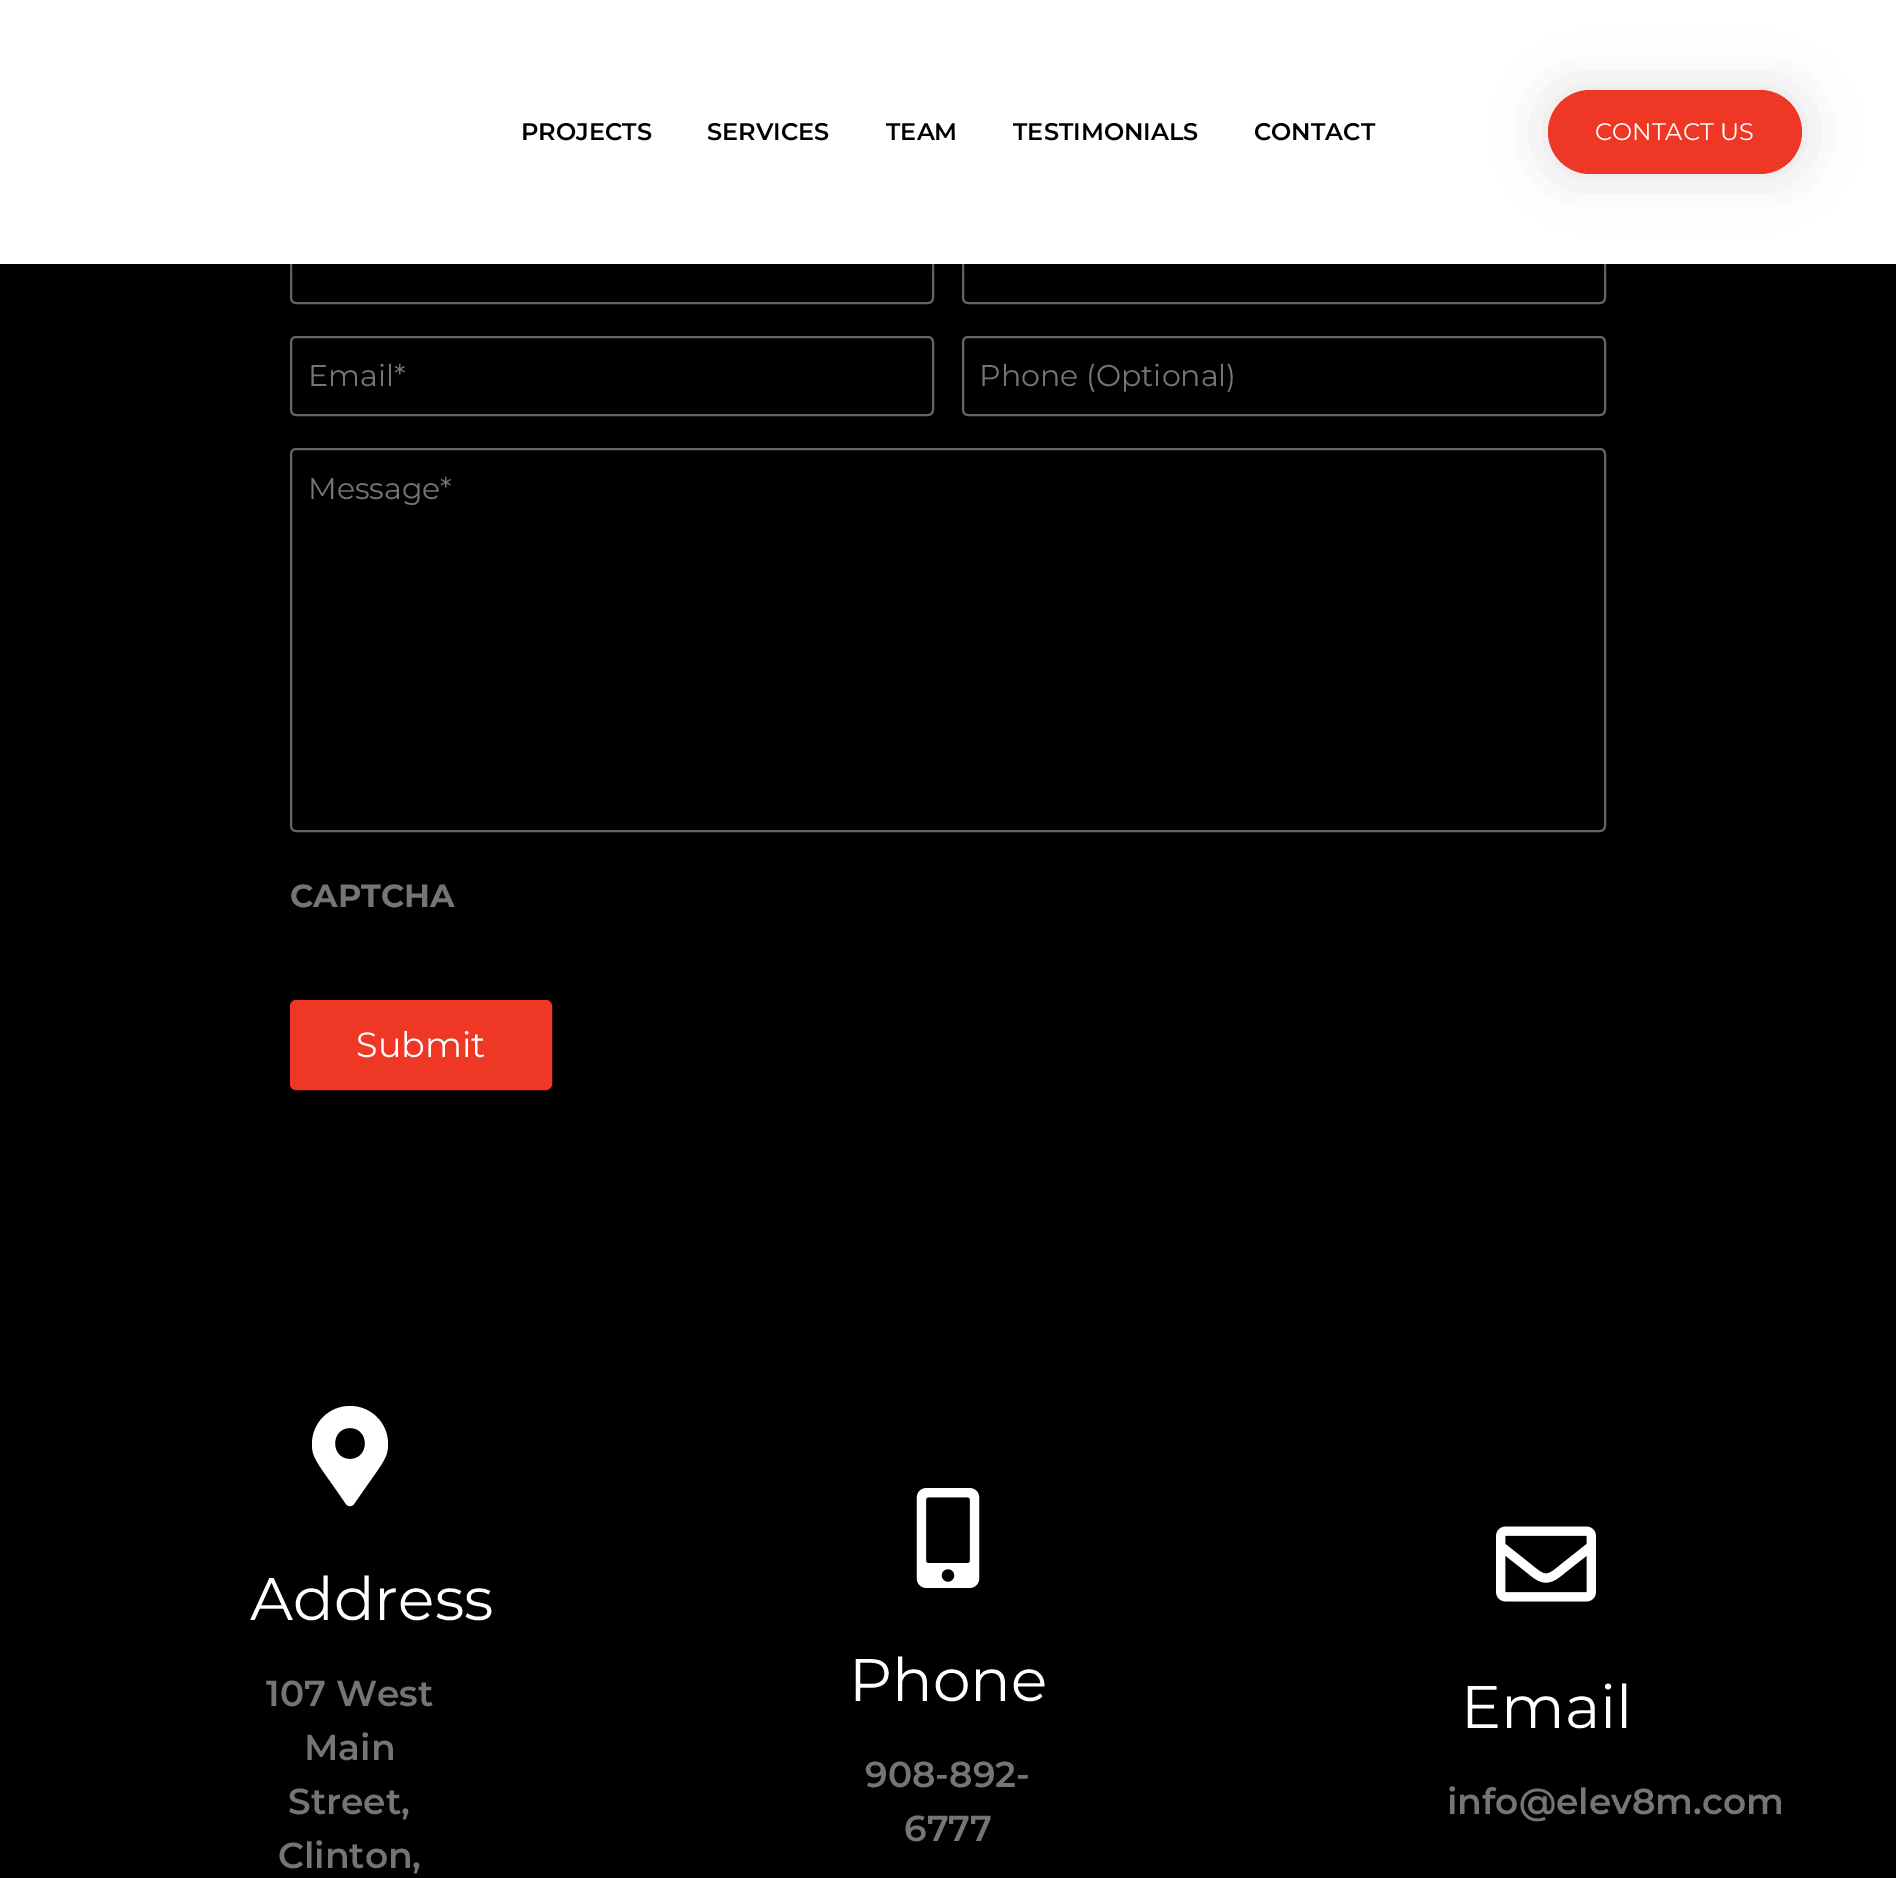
%!PS-Adobe-3.0
%%BoundingBox: 0 0 1896 1878
%%LanguageLevel: 3
%%Pages: 1
%%EndComments
%%BeginProlog
/setalpha { dup .setfillconstantalpha .setstrokeconstantalpha } def
/rrect { 5 dict begin { /r /h /w /y /x } { exch def } forall
  x r add y moveto x w add y 2 copy h add r arct x w add y h add x 1 index r arct
  x y h add x y r arct x y 2 copy exch w add exch r arct closepath end } def
/softshadow { 12 dict begin { /a /b /q /h /w /y /x } { exch def } forall gsave /was 0 def
  9 -2 -9 { dup b mul 4 div /e exch def 1 sub .425 mul 2.718 exch exp 1 add a .99 .min exch div /now exch def
    1 1 now sub 1 was sub div sub setalpha /was now def
    w h .min e 2 mul add 0 gt { x e sub y e sub w e 2 mul add h e 2 mul add
      q e add b .6 mul add w h .min 2 div e add .min 0 .max rrect fill } if } for grestore end } def
/drawimage { 5 dict begin { /h /w /y /x /name } { exch def } forall
  gsave x y translate w h scale
  w h 8 [w 0 0 h 0 0] name (r) file false 3 colorimage grestore end } def
%%EndProlog
%%BeginSetup
<< /PageSize [1896 1878] /PageUsesTransparency true >> setpagedevice
%%EndSetup
%%Page: 1 1
0 .pushpdf14devicefilter
0 1878 translate 1 -1 scale
4 setmiterlimit
0 setgray
0 0 1896 1878 rectfill
0.4 setgray
2 setlinewidth
291 223 642 80 5 rrect stroke
963 223 642 80 5 rrect stroke
291 337 642 78 5 rrect stroke
963 337 642 78 5 rrect stroke
0 setgray
0 0 1896 264 0 24 0.15 softshadow
1 setgray
0 0 1896 264 rectfill
0 setgray
1548 90 254 84 42 27 0.12 softshadow
0.933 0.216 0.141 setrgbcolor
1548 90 254 84 42 rrect fill
0.4 setgray
291 449 1314 382 5 rrect stroke
0.933 0.216 0.141 setrgbcolor
291 1001 260 88 5 rrect gsave fill grestore
stroke
1 setgray
newpath 346 1504 moveto 318 1463 312 1459 312 1444 curveto 312 1423 329 1406 350 1406 curveto 371 1406 388 1423 388 1444 curveto 388 1459 382 1463 354 1504 curveto 352 1507 348 1507 346 1504 curveto closepath 350 1459 moveto 370 1459 370 1428 350 1428 curveto 330 1428 330 1459 350 1459 curveto closepath fill
(images/1.raw) 916 1488 64 100 drawimage
(images/2.raw) 1496 1526 100 76 drawimage
/Montserrat-SemiBold [24 0 0 -24 0 0] selectfont
0 setgray
521 140 moveto (PROJECTS) show
707 140 moveto (SERVICES) show
886 140 moveto (TEAM) show
1013 140 moveto (TESTIMONIALS) show
1254 140 moveto (CONTACT) show
/Montserrat-Regular [24 0 0 -24 0 0] selectfont
1 setgray
1595 140 moveto (CONTACT US) show
/Montserrat-Regular [30 0 0 -30 0 0] selectfont
0.459 setgray
308 386 moveto (Email*) show
979 386 moveto (Phone \(Optional\)) show
308 499 moveto (Message*) show
/Montserrat-Bold [32 0 0 -32 0 0] selectfont
290 907 moveto (CAPTCHA) show
/Montserrat-Regular [35 0 0 -35 0 0] selectfont
1 setgray
356 1057 moveto (Submit) show
/Montserrat-Regular [60 0 0 -60 0 0] selectfont
250 1620 moveto (Address) show
/Montserrat-SemiBold [36 0 0 -36 0 0] selectfont
0.459 setgray
266 1706 moveto (107 West) show
304 1760 moveto (Main) show
288 1814 moveto (Street,) show
278 1868 moveto (Clinton,) show
/Montserrat-Regular [60 0 0 -60 0 0] selectfont
1 setgray
849 1701 moveto (Phone) show
/Montserrat-SemiBold [36 0 0 -36 0 0] selectfont
0.459 setgray
865 1787 moveto (908-892-) show
904 1841 moveto (6777) show
/Montserrat-Regular [60 0 0 -60 0 0] selectfont
1 setgray
1461 1728 moveto (Email) show
/Montserrat-SemiBold [36 0 0 -36 0 0] selectfont
0.459 setgray
1447 1814 moveto (info@elev8m.com) show
.poppdf14devicefilter showpage
%%EOF
